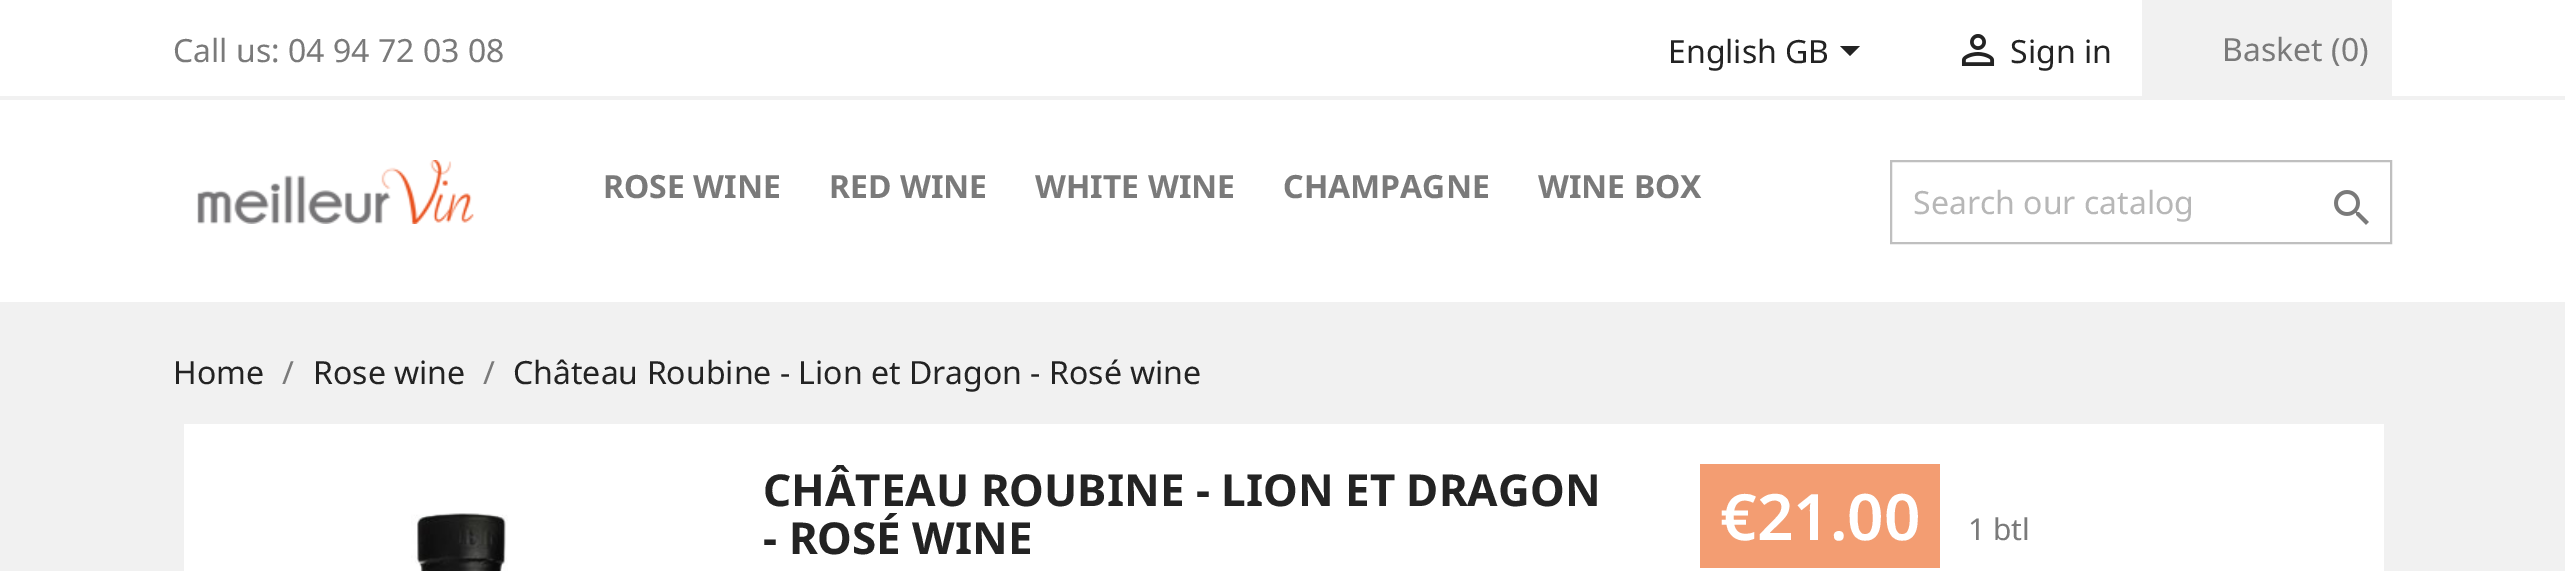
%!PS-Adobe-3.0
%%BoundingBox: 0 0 2565 571
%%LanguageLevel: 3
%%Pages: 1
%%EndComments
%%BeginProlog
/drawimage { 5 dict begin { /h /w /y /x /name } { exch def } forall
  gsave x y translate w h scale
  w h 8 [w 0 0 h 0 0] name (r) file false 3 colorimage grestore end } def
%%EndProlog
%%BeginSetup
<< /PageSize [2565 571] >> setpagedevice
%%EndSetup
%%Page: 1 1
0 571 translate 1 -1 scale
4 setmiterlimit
1 setgray
0 0 2565 571 rectfill
0.945 setgray
0 96 2565 4 rectfill
0.137 setgray
newpath 1840 46 moveto 1860 46 lineto 1850 56 lineto closepath fill
(images/1.raw) 1961 34 34 32 drawimage
0.945 setgray
2142 0 250 96 rectfill
(images/2.raw) 197 160 277 64 drawimage
0.749 setgray
2 setlinewidth
1891 161 500 82 rectstroke
(images/3.raw) 2334 190 35 35 drawimage
0.945 setgray
0 302 2565 269 rectfill
1 setgray
184 424 2200 147 rectfill
(images/4.raw) 411 513 97 58 drawimage
0.953 0.616 0.447 setrgbcolor
1700 464 240 104 rectfill
/NotoSans-Regular [32 0 0 -32 0 0] selectfont
0.478 setgray
173 62 moveto (Call us: 04 94 72 03 08) show
0.137 setgray
1668 63 moveto (English GB) show
2010 63 moveto (Sign in) show
0.478 setgray
2222 61 moveto (Basket \(0\)) show
/NotoSans-Bold [32 0 0 -32 0 0] selectfont
603 198 moveto (ROSE WINE) show
829 198 moveto (RED WINE) show
1035 198 moveto (WHITE WINE) show
1283 198 moveto (CHAMPAGNE) show
1538 198 moveto (WINE BOX) show
/NotoSans-Regular [32 0 0 -32 0 0] selectfont
0.718 setgray
1913 214 moveto (Search our catalog) show
0.137 setgray
173 384 moveto (Home) show
0.478 setgray
282 384 moveto (/) show
0.137 setgray
313 384 moveto (Rose wine) show
0.478 setgray
483 384 moveto (/) show
0.137 setgray
513 384 moveto (Château Roubine - Lion et Dragon - Rosé wine) show
/NotoSans-Bold [44 0 0 -44 0 0] selectfont
763 506 moveto (CHÂTEAU ROUBINE - LION ET DRAGON) show
763 554 moveto (- ROSÉ WINE) show
/NotoSans-SemiBold [64 0 0 -64 0 0] selectfont
1 setgray
1720 540 moveto (€21.00) show
/NotoSans-Regular [30 0 0 -30 0 0] selectfont
0.478 setgray
1968 540 moveto (1 btl) show
showpage
%%EOF
